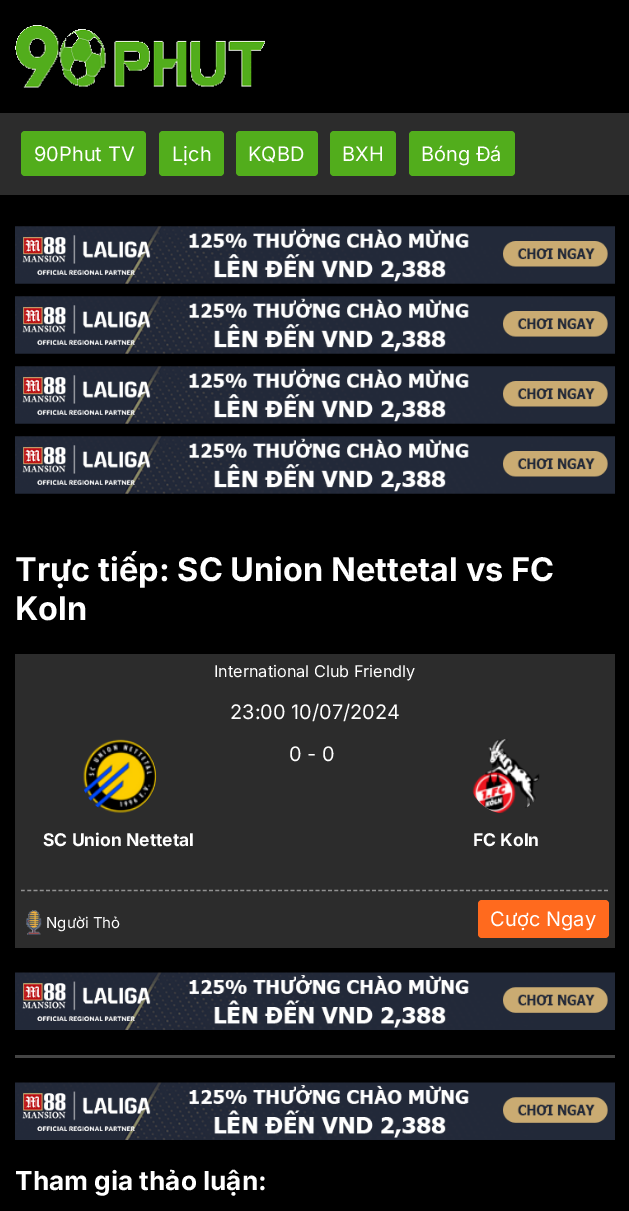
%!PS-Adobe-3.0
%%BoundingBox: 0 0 629 1211
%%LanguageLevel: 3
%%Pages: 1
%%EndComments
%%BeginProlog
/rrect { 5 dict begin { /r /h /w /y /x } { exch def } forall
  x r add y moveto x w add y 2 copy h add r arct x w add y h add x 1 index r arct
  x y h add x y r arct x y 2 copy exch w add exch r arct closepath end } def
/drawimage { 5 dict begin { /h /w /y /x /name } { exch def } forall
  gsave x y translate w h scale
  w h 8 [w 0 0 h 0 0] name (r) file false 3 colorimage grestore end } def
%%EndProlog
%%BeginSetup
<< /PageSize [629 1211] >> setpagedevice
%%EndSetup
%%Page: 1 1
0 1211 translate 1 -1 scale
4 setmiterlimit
0 setgray
0 0 629 1211 rectfill
(images/1.raw) 15 25 250 63 drawimage
0.173 setgray
0 113 629 82 rectfill
0.322 0.678 0.11 setrgbcolor
21 131 125 45 4 rrect fill
159 131 65 45 4 rrect fill
236 131 82 45 4 rrect fill
330 131 66 45 4 rrect fill
409 131 106 45 4 rrect fill
(images/2.raw) 15 226 600 58 drawimage
(images/3.raw) 15 296 600 58 drawimage
(images/2.raw) 15 366 600 58 drawimage
(images/2.raw) 15 436 600 58 drawimage
0.173 setgray
15 654 600 294 rectfill
(images/4.raw) 83 739 74 74 drawimage
(images/5.raw) 472 739 68 75 drawimage
0.569 setgray
1.2 setlinewidth
[3.75 2.52] 0 setdash
newpath 21 890.5 moveto 609 890.5 lineto stroke
(images/6.raw) 26 910 16 25 drawimage
1 0.416 0.118 setrgbcolor
478 900 131 38 4 rrect fill
(images/7.raw) 15 972 600 58 drawimage
0.267 setgray
15 1055 600 3 rectfill
(images/8.raw) 15 1082 600 58 drawimage
/Inter-Regular [20 0 0 -20 0 0] selectfont
1 setgray
34 161 moveto (90Phut TV) show
172 161 moveto (Lịch) show
248 161 moveto (KQBD) show
342 161 moveto (BXH) show
421 161 moveto (Bóng Đá) show
/Inter-Bold [32.5 0 0 -32.5 0 0] selectfont
15 581 moveto (Trực tiếp: SC Union Nettetal vs FC) show
15 620 moveto (Koln) show
/Inter-Regular [16.25 0 0 -16.25 0 0] selectfont
214 677 moveto (International Club Friendly) show
/Inter-Regular [20 0 0 -20 0 0] selectfont
230 719 moveto (23:00 10/07/2024) show
289 761 moveto (0 - 0) show
/Inter-Bold [17.5 0 0 -17.5 0 0] selectfont
43 846 moveto (SC Union Nettetal) show
473 846 moveto (FC Koln) show
/Inter-Regular [15 0 0 -15 0 0] selectfont
46 928 moveto (Người Thỏ) show
/Inter-Regular [20 0 0 -20 0 0] selectfont
490 926 moveto (Cược Ngay) show
/Inter-Bold [26.25 0 0 -26.25 0 0] selectfont
15 1190 moveto (Tham gia thảo luận:) show
showpage
%%EOF
